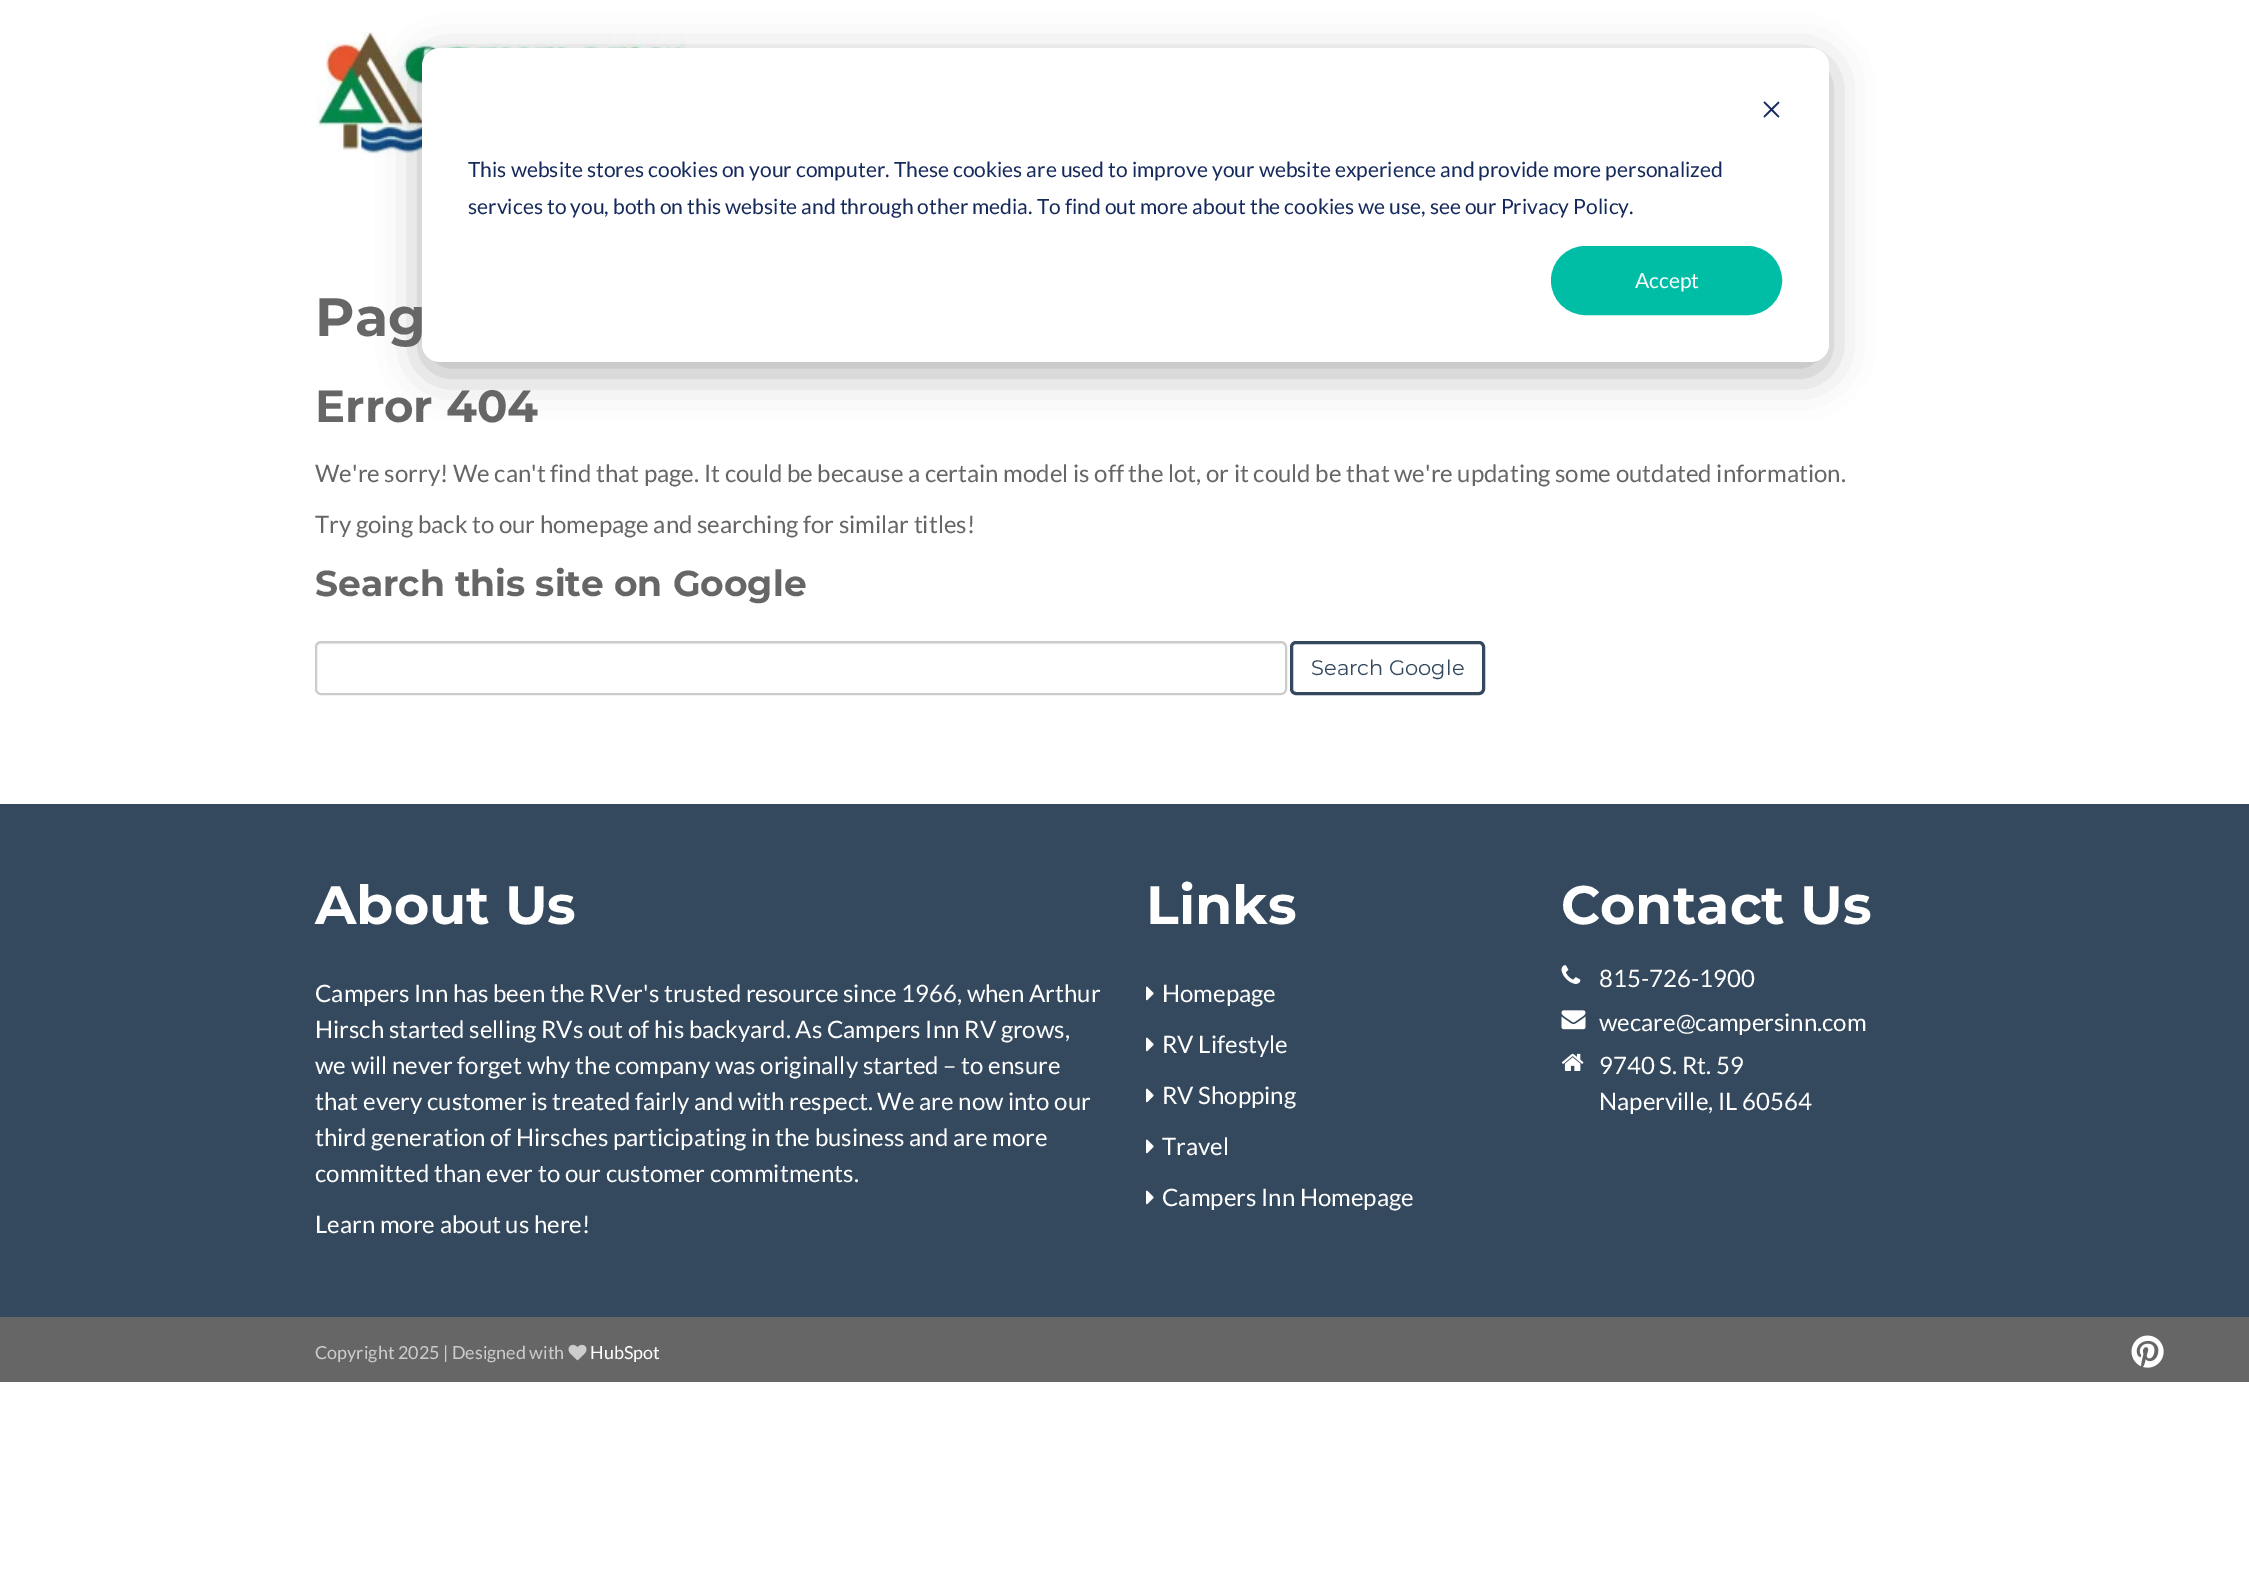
%!PS-Adobe-3.0
%%BoundingBox: 0 0 2249 1569
%%LanguageLevel: 3
%%Pages: 1
%%EndComments
%%BeginProlog
/setalpha { dup .setfillconstantalpha .setstrokeconstantalpha } def
/rrect { 5 dict begin { /r /h /w /y /x } { exch def } forall
  x r add y moveto x w add y 2 copy h add r arct x w add y h add x 1 index r arct
  x y h add x y r arct x y 2 copy exch w add exch r arct closepath end } def
/softshadow { 12 dict begin { /a /b /q /h /w /y /x } { exch def } forall gsave /was 0 def
  9 -2 -9 { dup b mul 4 div /e exch def 1 sub .425 mul 2.718 exch exp 1 add a .99 .min exch div /now exch def
    1 1 now sub 1 was sub div sub setalpha /was now def
    w h .min e 2 mul add 0 gt { x e sub y e sub w e 2 mul add h e 2 mul add
      q e add b .6 mul add w h .min 2 div e add .min 0 .max rrect fill } if } for grestore end } def
/drawimage { 5 dict begin { /h /w /y /x /name } { exch def } forall
  gsave x y translate w h scale
  w h 8 [w 0 0 h 0 0] name (r) file false 3 colorimage grestore end } def
%%EndProlog
%%BeginSetup
<< /PageSize [2249 1569] /PageUsesTransparency true >> setpagedevice
%%EndSetup
%%Page: 1 1
0 .pushpdf14devicefilter
0 1569 translate 1 -1 scale
4 setmiterlimit
1 setgray
0 0 2249 1569 rectfill
(images/1.raw) 317 32 369 122 drawimage
0 setgray
422 60 1407 314 18 21 0.28 softshadow
1 setgray
422 48 1407 314 18 rrect fill
(images/2.raw) 1763 101 17 17 drawimage
0 0.741 0.647 setrgbcolor
1552 247 229 67 33.5 rrect gsave fill grestore
2 setlinewidth
stroke
0.925 setgray
newpath 321 644 moveto 1281 644 lineto 1283 644 1286 646 1286 648 curveto 1286 647 lineto 1286 644 1284 642 1281 642 curveto 322 642 lineto 320 642 318 644 317 646 curveto 318 645 320 644 321 644 curveto closepath fill
0.8 setgray
316 642 970 52 5 rrect stroke
0.204 0.286 0.369 setrgbcolor
3 setlinewidth
1291.5 642.5 192 51 4.5 rrect stroke
0 804 2249 513 rectfill
(images/3.raw) 1146 986 8 15 drawimage
(images/3.raw) 1146 1037 8 15 drawimage
(images/3.raw) 1146 1088 8 15 drawimage
(images/3.raw) 1146 1139 8 15 drawimage
(images/3.raw) 1146 1190 8 15 drawimage
(images/4.raw) 1561 965 20 19 drawimage
(images/5.raw) 1561 1010 25 20 drawimage
(images/6.raw) 1561 1053 23 18 drawimage
0.4 setgray
0 1317 2249 65 rectfill
(images/7.raw) 568 1344 19 17 drawimage
(images/8.raw) 2131 1335 33 33 drawimage
/Lato-Regular [21 0 0 -21 0 0] selectfont
0.082 0.161 0.353 setrgbcolor
468 177 moveto (This website stores cookies on your computer. These cookies are used to improve your website experience and provide more personalized) show
468 214 moveto (services to you, both on this website and through other media. To find out more about the cookies we use, see our Privacy Policy.) show
1 setgray
1635 288 moveto (Accept) show
/Montserrat-Bold [54 0 0 -54 0 0] selectfont
0.4 setgray
315 336 moveto (Pag) show
/Montserrat-Bold [45 0 0 -45 0 0] selectfont
315 422 moveto (Error 404) show
/Lato-Regular [24 0 0 -24 0 0] selectfont
315 482 moveto (We're sorry! We can't find that page. It could be because a certain model is off the lot, or it could be that we're updating some outdated information.) show
315 533 moveto (Try going back to our homepage and searching for similar titles!) show
/Montserrat-Bold [36 0 0 -36 0 0] selectfont
315 596 moveto (Search this site on Google) show
/Montserrat-Regular [21 0 0 -21 0 0] selectfont
0.204 0.286 0.369 setrgbcolor
1311 675 moveto (Search Google) show
/Montserrat-Bold [54 0 0 -54 0 0] selectfont
1 setgray
315 924 moveto (About Us) show
/Lato-Regular [24 0 0 -24 0 0] selectfont
315 1002 moveto (Campers Inn has been the RVer's trusted resource since 1966, when Arthur) show
315 1038 moveto (Hirsch started selling RVs out of his backyard. As Campers Inn RV grows,) show
315 1074 moveto (we will never forget why the company was originally started – to ensure) show
315 1110 moveto (that every customer is treated fairly and with respect. We are now into our) show
315 1146 moveto (third generation of Hirsches participating in the business and are more) show
315 1182 moveto (committed than ever to our customer commitments.) show
315 1233 moveto (Learn more about us here!) show
/Montserrat-Bold [54 0 0 -54 0 0] selectfont
1146 924 moveto (Links) show
/Lato-Regular [24 0 0 -24 0 0] selectfont
1162 1002 moveto (Homepage) show
1162 1053 moveto (RV Lifestyle) show
1162 1104 moveto (RV Shopping) show
1162 1155 moveto (Travel) show
1162 1206 moveto (Campers Inn Homepage) show
/Montserrat-Bold [54 0 0 -54 0 0] selectfont
1561 924 moveto (Contact Us) show
/Lato-Regular [24 0 0 -24 0 0] selectfont
1599 987 moveto (815-726-1900) show
1599 1031 moveto (wecare@campersinn.com) show
1599 1074 moveto (9740 S. Rt. 59) show
1599 1110 moveto (Naperville, IL 60564) show
/Lato-Regular [18 0 0 -18 0 0] selectfont
0.8 setgray
315 1359 moveto (Copyright 2025 | Designed with) show
1 setgray
590 1359 moveto (HubSpot) show
.poppdf14devicefilter showpage
%%EOF
